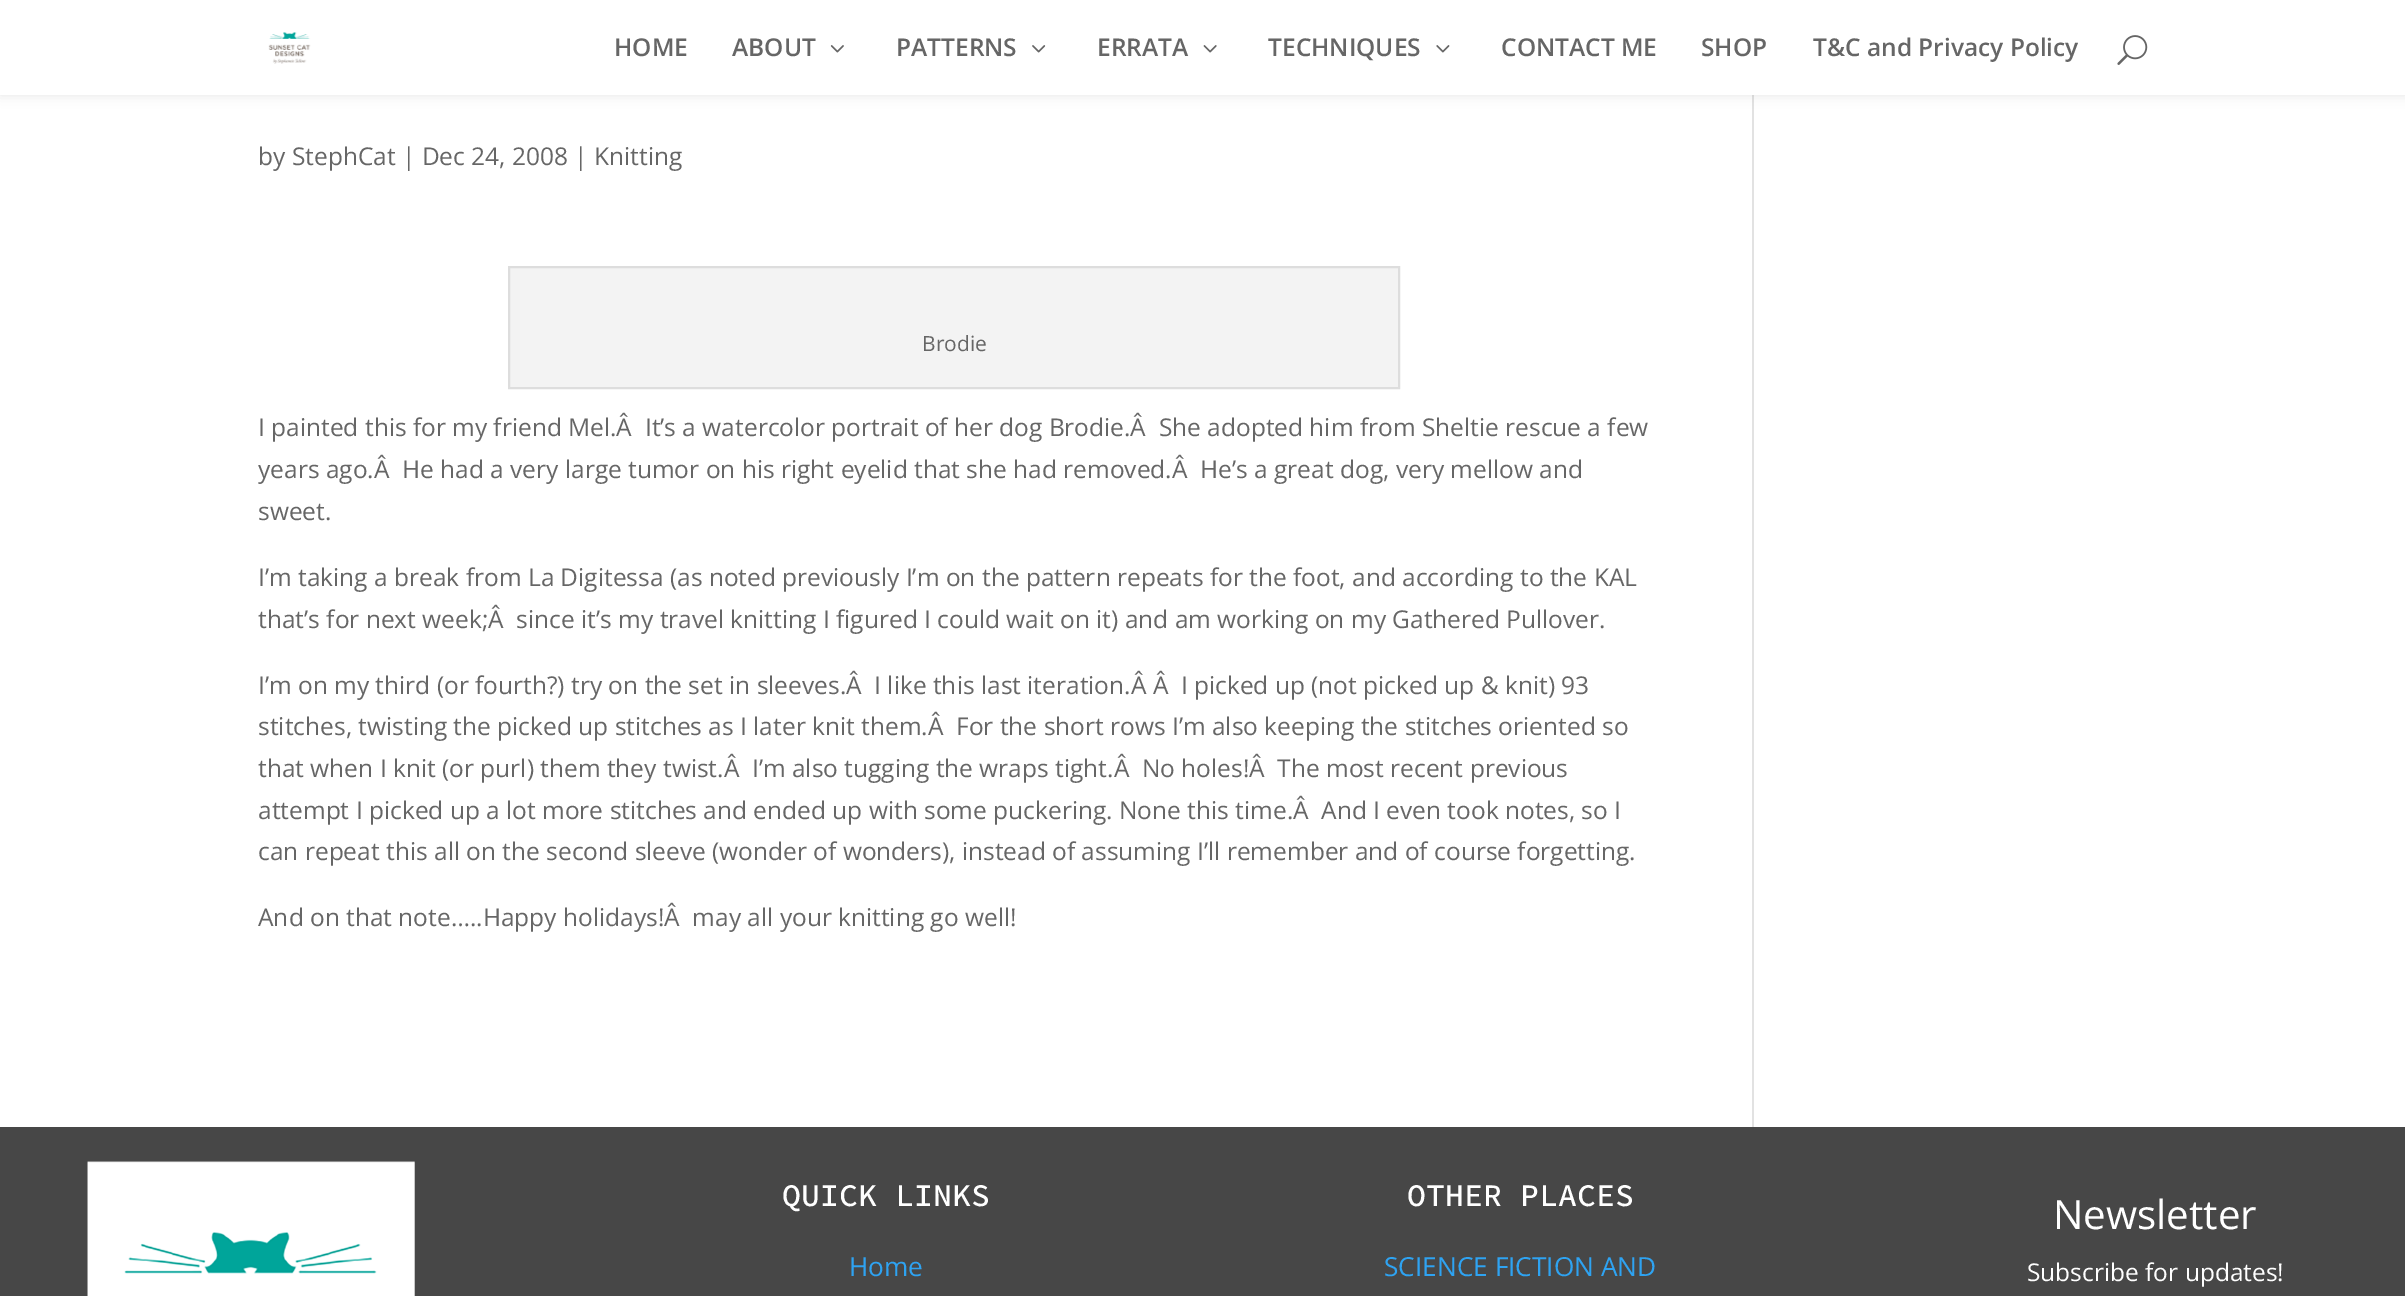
%!PS-Adobe-3.0
%%BoundingBox: 0 0 2405 1296
%%LanguageLevel: 3
%%Pages: 1
%%EndComments
%%BeginProlog
/setalpha { dup .setfillconstantalpha .setstrokeconstantalpha } def
/rrect { 5 dict begin { /r /h /w /y /x } { exch def } forall
  x r add y moveto x w add y 2 copy h add r arct x w add y h add x 1 index r arct
  x y h add x y r arct x y 2 copy exch w add exch r arct closepath end } def
/softshadow { 12 dict begin { /a /b /q /h /w /y /x } { exch def } forall gsave /was 0 def
  9 -2 -9 { dup b mul 4 div /e exch def 1 sub .425 mul 2.718 exch exp 1 add a .99 .min exch div /now exch def
    1 1 now sub 1 was sub div sub setalpha /was now def
    w h .min e 2 mul add 0 gt { x e sub y e sub w e 2 mul add h e 2 mul add
      q e add b .6 mul add w h .min 2 div e add .min 0 .max rrect fill } if } for grestore end } def
/drawimage { 5 dict begin { /h /w /y /x /name } { exch def } forall
  gsave x y translate w h scale
  w h 8 [w 0 0 h 0 0] name (r) file false 3 colorimage grestore end } def
%%EndProlog
%%BeginSetup
<< /PageSize [2405 1296] /PageUsesTransparency true >> setpagedevice
%%EndSetup
%%Page: 1 1
0 .pushpdf14devicefilter
0 1296 translate 1 -1 scale
4 setmiterlimit
1 setgray
0 0 2405 1296 rectfill
0.886 setgray
1752 95 2 1032 rectfill
0 setgray
0 0 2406 95 0 6 0.1 softshadow
1 setgray
0 0 2405 95 rectfill
(images/1.raw) 268 32 43 32 drawimage
(images/2.raw) 830 45 14 8 drawimage
(images/3.raw) 1032 45 14 8 drawimage
(images/4.raw) 1203 45 14 8 drawimage
(images/5.raw) 1436 45 14 8 drawimage
(images/6.raw) 2117 35 31 30 drawimage
0.953 setgray
newpath 509 267 moveto 1399 267 lineto 1399 388 lineto 509 388 lineto closepath gsave fill grestore
0.867 setgray
2 setlinewidth
stroke
0.278 setgray
0 1127 2405 169 rectfill
(images/7.raw) 87 1161 328 135 drawimage
/OpenSans-SemiBold [24.5 0 0 -24.5 0 0] selectfont
0.4 setgray
614 56 moveto (HOME) show
732 56 moveto (ABOUT) show
896 56 moveto (PATTERNS) show
1097 56 moveto (ERRATA) show
1268 56 moveto (TECHNIQUES) show
1501 56 moveto (CONTACT ME) show
1701 56 moveto (SHOP) show
1813 56 moveto (T&C and Privacy Policy) show
/OpenSans-Regular [24.5 0 0 -24.5 0 0] selectfont
258 165 moveto (by StephCat | Dec 24, 2008 | Knitting) show
/OpenSans-Regular [21 0 0 -21 0 0] selectfont
922 351 moveto (Brodie) show
/OpenSans-Regular [24.5 0 0 -24.5 0 0] selectfont
258 436 moveto (I painted this for my friend Mel.Â  It’s a watercolor portrait of her dog Brodie.Â  She adopted him from Sheltie rescue a few) show
258 478 moveto (years ago.Â  He had a very large tumor on his right eyelid that she had removed.Â  He’s a great dog, very mellow and) show
258 520 moveto (sweet.) show
258 586 moveto (I’m taking a break from La Digitessa \(as noted previously I’m on the pattern repeats for the foot, and according to the KAL) show
258 628 moveto (that’s for next week;Â  since it’s my travel knitting I figured I could wait on it\) and am working on my Gathered Pullover.) show
258 694 moveto (I’m on my third \(or fourth?\) try on the set in sleeves.Â  I like this last iteration.Â Â  I picked up \(not picked up & knit\) 93) show
258 735 moveto (stitches, twisting the picked up stitches as I later knit them.Â  For the short rows I’m also keeping the stitches oriented so) show
258 777 moveto (that when I knit \(or purl\) them they twist.Â  I’m also tugging the wraps tight.Â  No holes!Â  The most recent previous) show
258 819 moveto (attempt I picked up a lot more stitches and ended up with some puckering. None this time.Â  And I even took notes, so I) show
258 860 moveto (can repeat this all on the second sleeve \(wonder of wonders\), instead of assuming I’ll remember and of course forgetting.) show
258 926 moveto (And on that note…..Happy holidays!Â  may all your knitting go well!) show
/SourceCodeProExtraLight-ExtraLight [31.5 0 0 -31.5 0 0] selectfont
1 setgray
782 1206 moveto (QUICK LINKS) show
/OpenSans-Regular [26.25 0 0 -26.25 0 0] selectfont
0.18 0.639 0.949 setrgbcolor
849 1276 moveto (Home) show
/SourceCodeProExtraLight-ExtraLight [31.5 0 0 -31.5 0 0] selectfont
1 setgray
1407 1206 moveto (OTHER PLACES) show
/OpenSans-Regular [26.25 0 0 -26.25 0 0] selectfont
0.18 0.639 0.949 setrgbcolor
1384 1276 moveto (SCIENCE FICTION AND) show
/OpenSans-Regular [40.25 0 0 -40.25 0 0] selectfont
1 setgray
2053 1229 moveto (Newsletter) show
/OpenSans-Regular [24.5 0 0 -24.5 0 0] selectfont
2027 1281 moveto (Subscribe for updates!) show
.poppdf14devicefilter showpage
%%EOF
